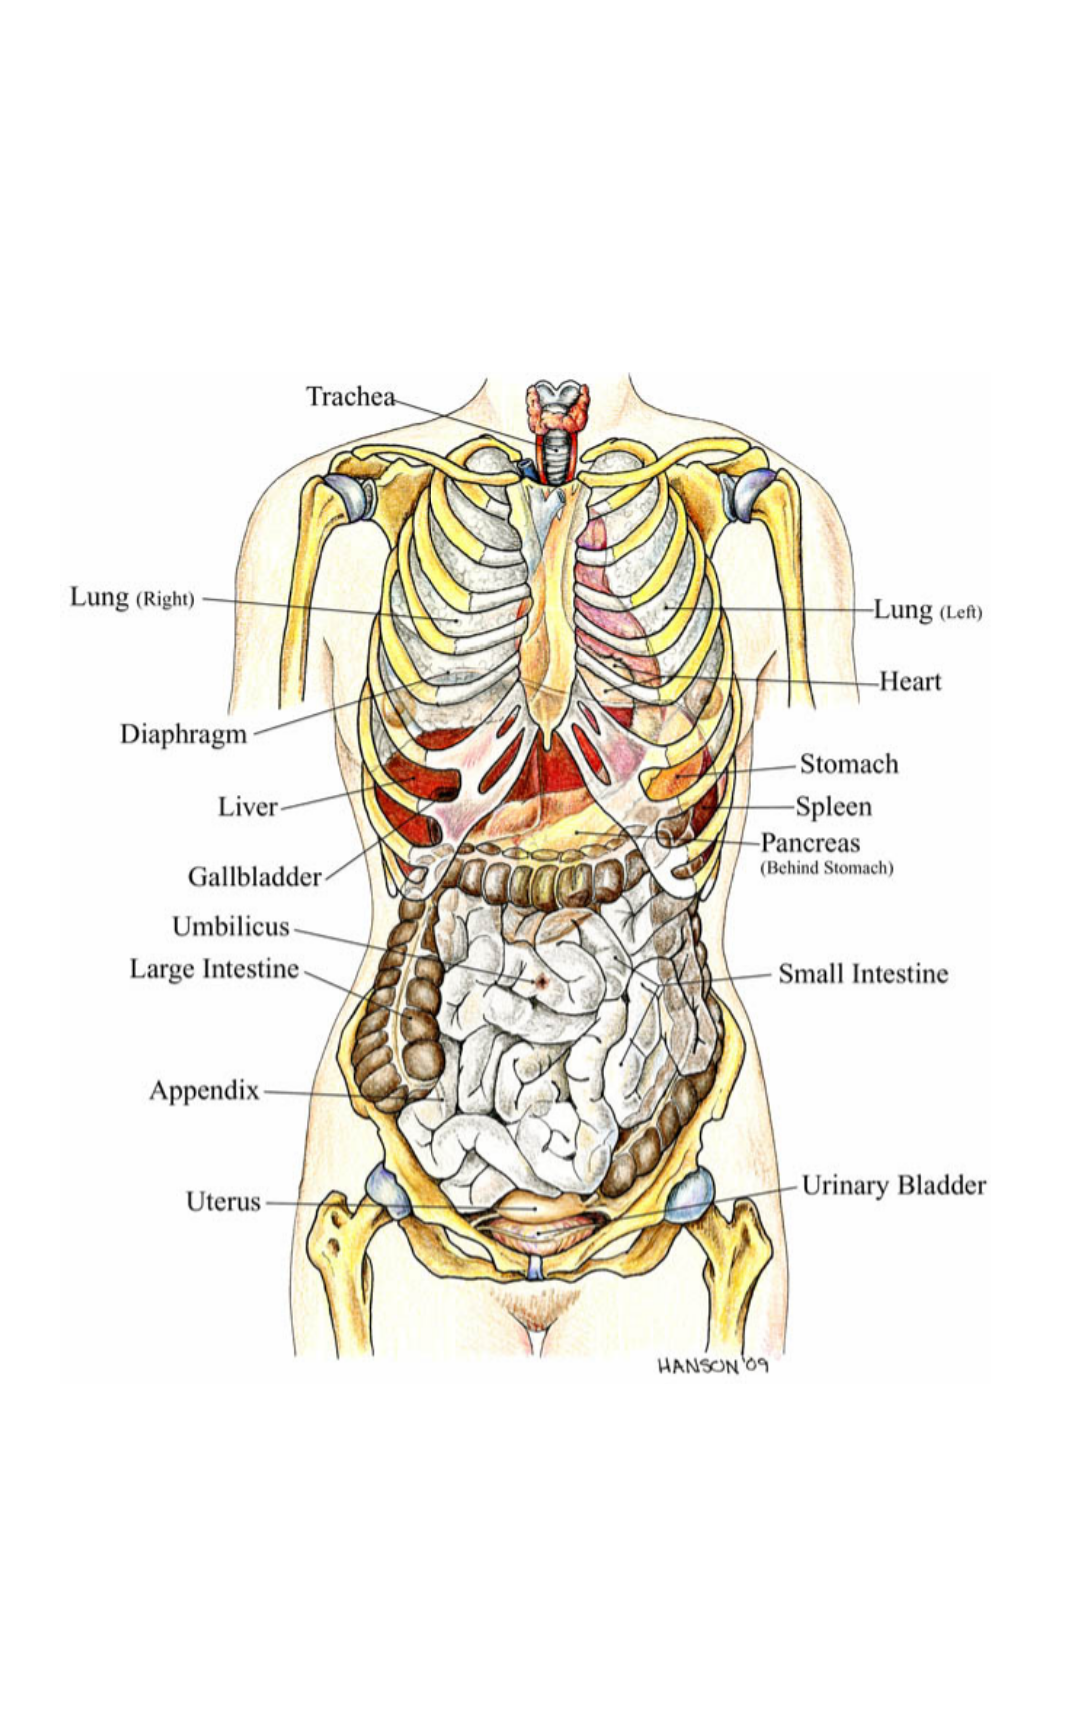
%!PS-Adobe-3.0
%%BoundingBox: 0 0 1066 1712
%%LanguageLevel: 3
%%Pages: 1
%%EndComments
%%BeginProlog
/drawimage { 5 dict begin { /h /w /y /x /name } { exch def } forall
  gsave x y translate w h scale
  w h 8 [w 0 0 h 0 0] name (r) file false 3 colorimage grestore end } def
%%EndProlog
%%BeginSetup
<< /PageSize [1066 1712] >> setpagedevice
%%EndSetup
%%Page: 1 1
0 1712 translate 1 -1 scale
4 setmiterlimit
1 setgray
0 0 1066 1712 rectfill
(images/1.raw) 60 372 931 1012 drawimage
showpage
%%EOF
